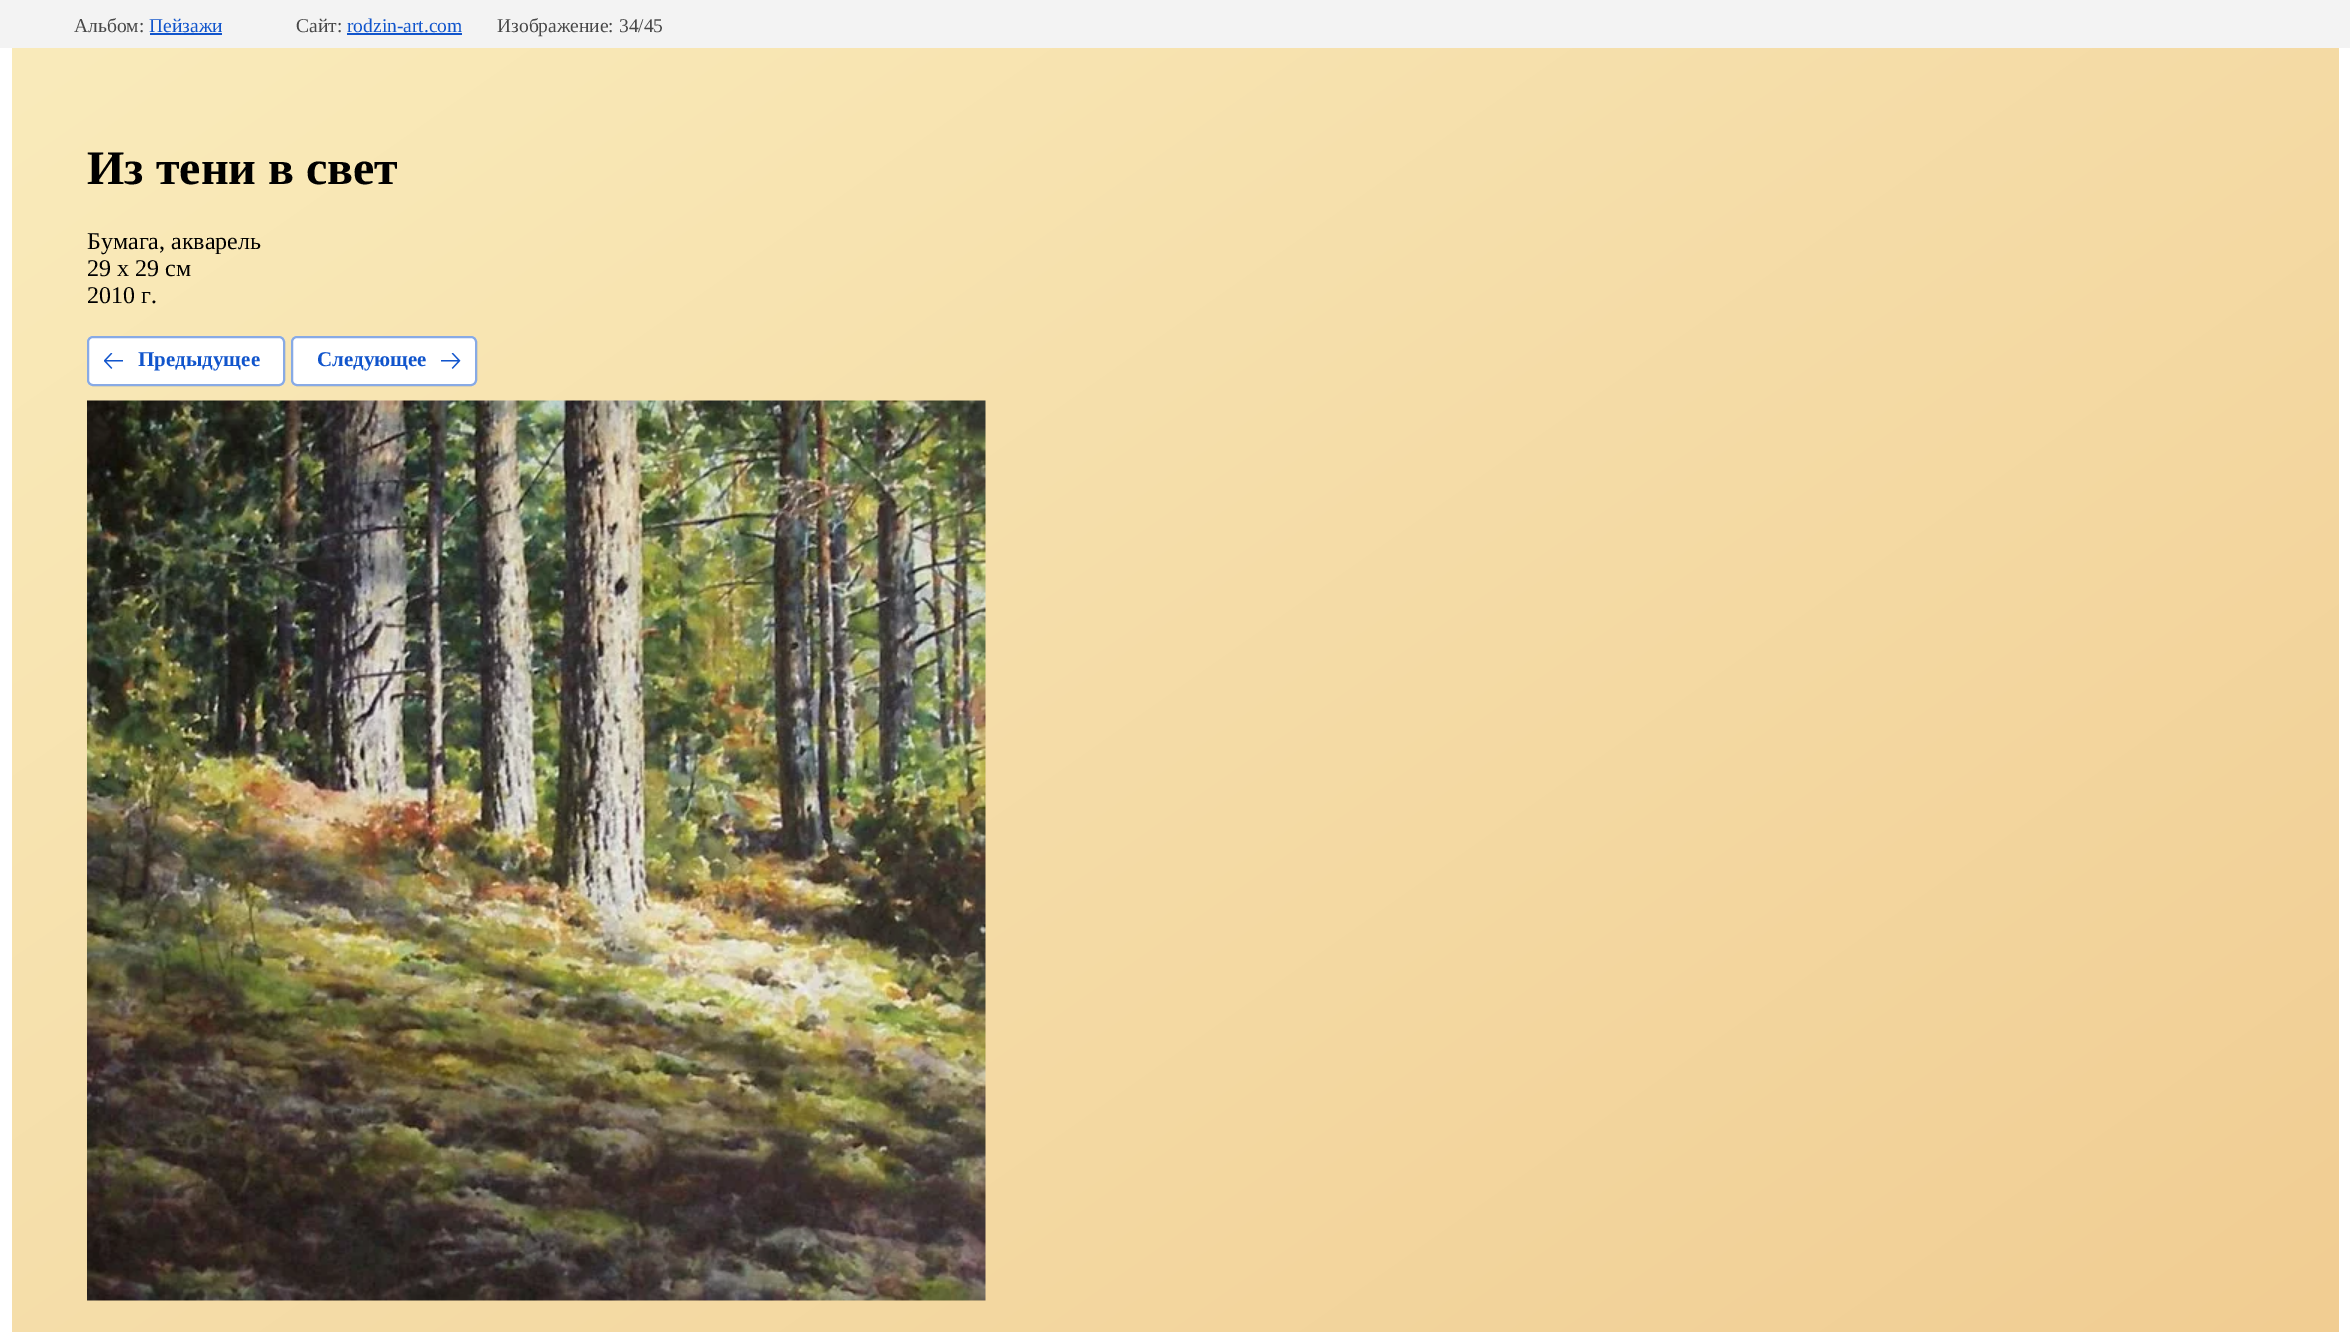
%!PS-Adobe-3.0
%%BoundingBox: 0 0 2350 1332
%%LanguageLevel: 3
%%Pages: 1
%%EndComments
%%BeginProlog
/setalpha { dup .setfillconstantalpha .setstrokeconstantalpha } def
/rrect { 5 dict begin { /r /h /w /y /x } { exch def } forall
  x r add y moveto x w add y 2 copy h add r arct x w add y h add x 1 index r arct
  x y h add x y r arct x y 2 copy exch w add exch r arct closepath end } def
/drawimage { 5 dict begin { /h /w /y /x /name } { exch def } forall
  gsave x y translate w h scale
  w h 8 [w 0 0 h 0 0] name (r) file false 3 colorimage grestore end } def
%%EndProlog
%%BeginSetup
<< /PageSize [2350 1332] /PageUsesTransparency true >> setpagedevice
%%EndSetup
%%Page: 1 1
0 .pushpdf14devicefilter
0 1332 translate 1 -1 scale
4 setmiterlimit
1 setgray
0 0 2350 1332 rectfill
gsave newpath 12 48 moveto 2339 48 lineto 2339 1332 lineto 12 1332 lineto closepath clip newpath
<< /ShadingType 2 /ColorSpace /DeviceRGB /Coords [410 -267 1941 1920] /Extend [true true] /Function << /FunctionType 2 /Domain [0 1] /C0 [0.98 0.925 0.737] /C1 [0.941 0.792 0.557] /N 1 >> >> shfill grestore
0.953 setgray
0 0 2350 48 rectfill
0.067 0.333 0.8 setrgbcolor
150 33 72 2 rectfill
347 33 115 2 rectfill
1 setgray
87 336 198 50 6 rrect fill
0.5 setalpha
0.067 0.333 0.8 setrgbcolor
2 setlinewidth
88 337 196 48 5 rrect stroke
1 setalpha
(images/1.raw) 104 353 19 16 drawimage
1 setgray
291 336 186 50 6 rrect fill
0.5 setalpha
0.067 0.333 0.8 setrgbcolor
292 337 184 48 5 rrect stroke
1 setalpha
(images/2.raw) 441 353 20 16 drawimage
(images/3.raw) 87 400 899 901 drawimage
/LiberationSerif-Regular [19.5 0 0 -19.5 0 0] selectfont
0.282 setgray
74 32 moveto (Альбом:) show
0.067 0.333 0.8 setrgbcolor
149 32 moveto (Пейзажи) show
0.282 setgray
296 32 moveto (Сайт:) show
0.067 0.333 0.8 setrgbcolor
347 32 moveto (rodzin-art.com) show
0.282 setgray
497 32 moveto (Изображение: 34/45) show
/LiberationSerif-Bold [48 0 0 -48 0 0] selectfont
0 setgray
87 184 moveto (Из тени в свет) show
/LiberationSerif-Regular [24 0 0 -24 0 0] selectfont
87 249 moveto (Бумага, акварель) show
87 276 moveto (29 х 29 см) show
87 303 moveto (2010 г.) show
/LiberationSerif-Bold [21 0 0 -21 0 0] selectfont
0.067 0.333 0.8 setrgbcolor
138 366 moveto (Предыдущее) show
317 366 moveto (Следующее) show
.poppdf14devicefilter showpage
%%EOF
